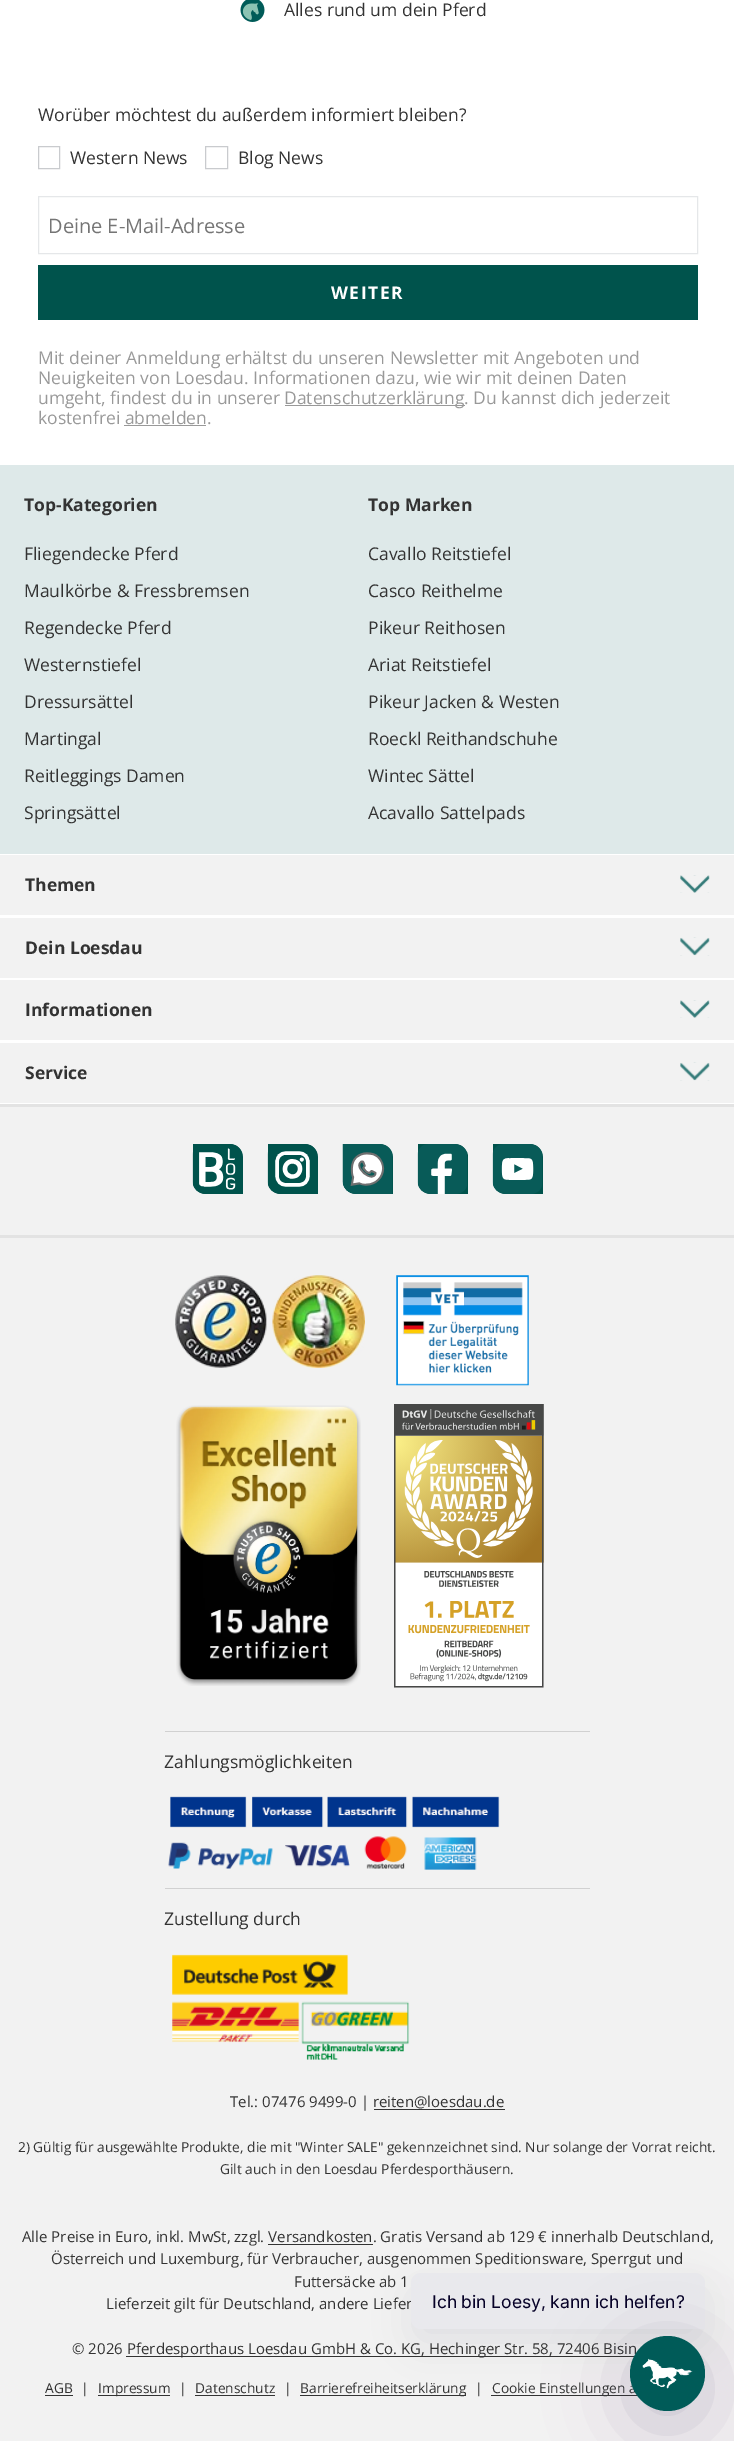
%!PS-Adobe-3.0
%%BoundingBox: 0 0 734 2441
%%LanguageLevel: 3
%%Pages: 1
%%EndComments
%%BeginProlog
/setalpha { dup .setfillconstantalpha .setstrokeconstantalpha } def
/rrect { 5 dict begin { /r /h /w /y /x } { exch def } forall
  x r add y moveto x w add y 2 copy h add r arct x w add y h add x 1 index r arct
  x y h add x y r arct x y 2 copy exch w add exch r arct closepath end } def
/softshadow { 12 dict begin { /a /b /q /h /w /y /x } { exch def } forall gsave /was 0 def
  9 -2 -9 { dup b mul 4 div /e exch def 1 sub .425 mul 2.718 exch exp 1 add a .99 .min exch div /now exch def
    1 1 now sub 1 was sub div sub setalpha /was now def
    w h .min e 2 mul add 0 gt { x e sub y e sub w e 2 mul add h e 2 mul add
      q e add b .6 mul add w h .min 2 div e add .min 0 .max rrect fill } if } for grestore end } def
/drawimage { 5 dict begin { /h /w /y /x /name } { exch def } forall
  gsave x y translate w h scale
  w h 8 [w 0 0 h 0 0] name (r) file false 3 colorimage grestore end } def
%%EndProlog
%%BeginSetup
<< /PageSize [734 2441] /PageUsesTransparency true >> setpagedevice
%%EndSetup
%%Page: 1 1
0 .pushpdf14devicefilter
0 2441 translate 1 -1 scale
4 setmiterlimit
1 setgray
0 0 734 2441 rectfill
(images/1.raw) 240 0 25 22 drawimage
0.788 0.796 0.808 setrgbcolor
38.5 146.5 21 22 rectstroke
205.5 146.5 22 22 rectstroke
0.898 0.906 0.914 setrgbcolor
38.5 196.5 659 57 rectstroke
0 0.325 0.298 setrgbcolor
38 265 660 55 rectfill
0.6 setgray
285 405 180 1 rectfill
124 425 82 1 rectfill
0.871 0.914 0.914 setrgbcolor
0 465 734 389 rectfill
0.949 setgray
0 855 734 60 rectfill
(images/2.raw) 680 875 30 18 drawimage
0 918 734 60 rectfill
(images/3.raw) 680 937 30 19 drawimage
0 980 734 60 rectfill
(images/2.raw) 680 1000 30 18 drawimage
0 1043 734 60 rectfill
(images/3.raw) 680 1062 30 19 drawimage
0 1107 734 1334 rectfill
0.89 setgray
0 1104 734 3 rectfill
0 0.325 0.298 setrgbcolor
newpath 193 1144 moveto 230 1144 lineto 237 1144 243 1150 243 1157 curveto 243 1194 lineto 206 1194 lineto 199 1194 193 1188 193 1181 curveto closepath fill
(images/4.raw) 192 1144 51 50 drawimage
newpath 268 1144 moveto 305 1144 lineto 312 1144 318 1150 318 1157 curveto 318 1194 lineto 281 1194 lineto 274 1194 268 1188 268 1181 curveto closepath fill
(images/5.raw) 267 1144 51 50 drawimage
newpath 343 1144 moveto 380 1144 lineto 387 1144 393 1150 393 1157 curveto 393 1194 lineto 356 1194 lineto 349 1194 343 1188 343 1181 curveto closepath fill
(images/6.raw) 342 1144 51 50 drawimage
newpath 418 1144 moveto 455 1144 lineto 462 1144 468 1150 468 1157 curveto 468 1194 lineto 431 1194 lineto 424 1194 418 1188 418 1181 curveto closepath fill
(images/7.raw) 417 1144 50 50 drawimage
newpath 493 1144 moveto 530 1144 lineto 537 1144 543 1150 543 1157 curveto 543 1194 lineto 506 1194 lineto 499 1194 493 1188 493 1181 curveto closepath fill
(images/8.raw) 492 1144 51 50 drawimage
0.89 setgray
0 1235 734 3 rectfill
(images/9.raw) 175 1275 92 93 drawimage
(images/10.raw) 272 1275 93 93 drawimage
(images/11.raw) 396 1275 133 111 drawimage
(images/12.raw) 176 1405 185 281 drawimage
(images/13.raw) 394 1404 150 284 drawimage
0.82 setgray
165 1731 425 1 rectfill
(images/14.raw) 168 1796 332 74 drawimage
165 1888 425 1 rectfill
(images/15.raw) 172 1954 238 106 drawimage
0.2 setgray
374 2109 131 1 rectfill
268 2244 105 1 rectfill
126 2356 509 1 rectfill
45 2395 28 1 rectfill
98 2395 72 1 rectfill
195 2395 80 1 rectfill
300 2395 166 1 rectfill
491 2395 147 1 rectfill
0.024 0.004 0.153 setrgbcolor
416 2293 284 46 5 20 0.08 softshadow
/OpenSans-Regular [17.5 0 0 -17.5 0 0] selectfont
0.2 setgray
284 16 moveto (Alles rund um dein Pferd) show
38 121 moveto (Worüber möchtest du außerdem informiert bleiben?) show
70 164 moveto (Western News) show
238 164 moveto (Blog News) show
/OpenSans-Regular [20 0 0 -20 0 0] selectfont
0.459 setgray
48 233 moveto (Deine E-Mail-Adresse) show
/OpenSans-Bold [17.5 0 0 -17.5 0 0] selectfont
1 setgray
331 299 moveto 1.5 0 (WEITER) ashow
/OpenSans-Regular [17.5 0 0 -17.5 0 0] selectfont
0.6 setgray
38 364 moveto (Mit deiner Anmeldung erhältst du unseren Newsletter mit Angeboten und) show
38 384 moveto (Neuigkeiten von Loesdau. Informationen dazu, wie wir mit deinen Daten) show
38 404 moveto (umgeht, findest du in unserer) show
284 404 moveto (Datenschutzerklärung. Du kannst dich jederzeit) show
38 424 moveto (kostenfrei abmelden.) show
/OpenSans-Bold [17.5 0 0 -17.5 0 0] selectfont
0.2 setgray
24 511 moveto (Top-Kategorien) show
/OpenSans-Regular [17.5 0 0 -17.5 0 0] selectfont
24 560 moveto (Fliegendecke Pferd) show
24 597 moveto (Maulkörbe & Fressbremsen) show
24 634 moveto (Regendecke Pferd) show
24 671 moveto (Westernstiefel) show
24 708 moveto (Dressursättel) show
24 745 moveto (Martingal) show
24 782 moveto (Reitleggings Damen) show
24 819 moveto (Springsättel) show
/OpenSans-Bold [17.5 0 0 -17.5 0 0] selectfont
368 511 moveto (Top Marken) show
/OpenSans-Regular [17.5 0 0 -17.5 0 0] selectfont
368 560 moveto (Cavallo Reitstiefel) show
368 597 moveto (Casco Reithelme) show
368 634 moveto (Pikeur Reithosen) show
368 671 moveto (Ariat Reitstiefel) show
368 708 moveto (Pikeur Jacken & Westen) show
368 745 moveto (Roeckl Reithandschuhe) show
368 782 moveto (Wintec Sättel) show
368 819 moveto (Acavallo Sattelpads) show
/OpenSans-Bold [17.5 0 0 -17.5 0 0] selectfont
25 891 moveto (Themen) show
25 954 moveto (Dein Loesdau) show
25 1016 moveto (Informationen) show
25 1079 moveto (Service) show
/OpenSans-Regular [17.5 0 0 -17.5 0 0] selectfont
164 1768 moveto (Zahlungsmöglichkeiten) show
164 1925 moveto (Zustellung durch) show
/OpenSans-Regular [15 0 0 -15 0 0] selectfont
230 2107 moveto (Tel.: 07476 9499-0 | reiten@loesdau.de) show
/OpenSans-Regular [13.75 0 0 -13.75 0 0] selectfont
18 2152 moveto (2\) Gültig für ausgewählte Produkte, die mit "Winter SALE" gekennzeichnet sind. Nur solange der Vorrat reicht.) show
220 2174 moveto (Gilt auch in den Loesdau Pferdesporthäusern.) show
/OpenSans-Regular [15 0 0 -15 0 0] selectfont
22 2242 moveto (Alle Preise in Euro, inkl. MwSt, zzgl. Versandkosten. Gratis Versand ab 129 € innerhalb Deutschland,) show
51 2264 moveto (Österreich und Luxemburg, für Verbraucher, ausgenommen Speditionsware, Sperrgut und) show
294 2287 moveto (Futtersäcke ab 1) show
106 2309 moveto (Lieferzeit gilt für Deutschland, andere Liefer) show
72 2354 moveto (© 2026) show
127 2354 moveto (Pferdesporthaus Loesdau GmbH & Co. KG, Hechinger Str. 58, 72406 Bisin) show
/OpenSans-Regular [13.75 0 0 -13.75 0 0] selectfont
45 2393 moveto (AGB) show
81 2393 moveto (|) show
98 2393 moveto (Impressum) show
179 2393 moveto (|) show
195 2393 moveto (Datenschutz) show
284 2393 moveto (|) show
300 2393 moveto (Barrierefreiheitserklärung) show
475 2393 moveto (|) show
492 2393 moveto (Cookie Einstellungen a) show
0.914 0.914 0.929 setrgbcolor
newpath 421 2273 moveto 695 2273 lineto 700.5 2273 705 2277.5 705 2283 curveto 705 2329 lineto 421 2329 lineto 415.5 2329 411 2324.5 411 2319 curveto 411 2283 lineto 411 2277.5 415.5 2273 421 2273 curveto closepath fill
0.243 0.184 0.349 setrgbcolor
630 2351 75 75 37.5 40 0.24 softshadow
0 0.357 0.345 setrgbcolor
newpath 667.5 2373.5 37.5 0 360 arc closepath fill
(images/16.raw) 642 2358 51 31 drawimage
/Inter-Regular [17.5 0 0 -17.5 0 0] selectfont
0.024 0.004 0.153 setrgbcolor
432 2308 moveto -0.5 0 32 (Ich bin Loesy, kann ich helfen?) widthshow
.poppdf14devicefilter showpage
%%EOF
